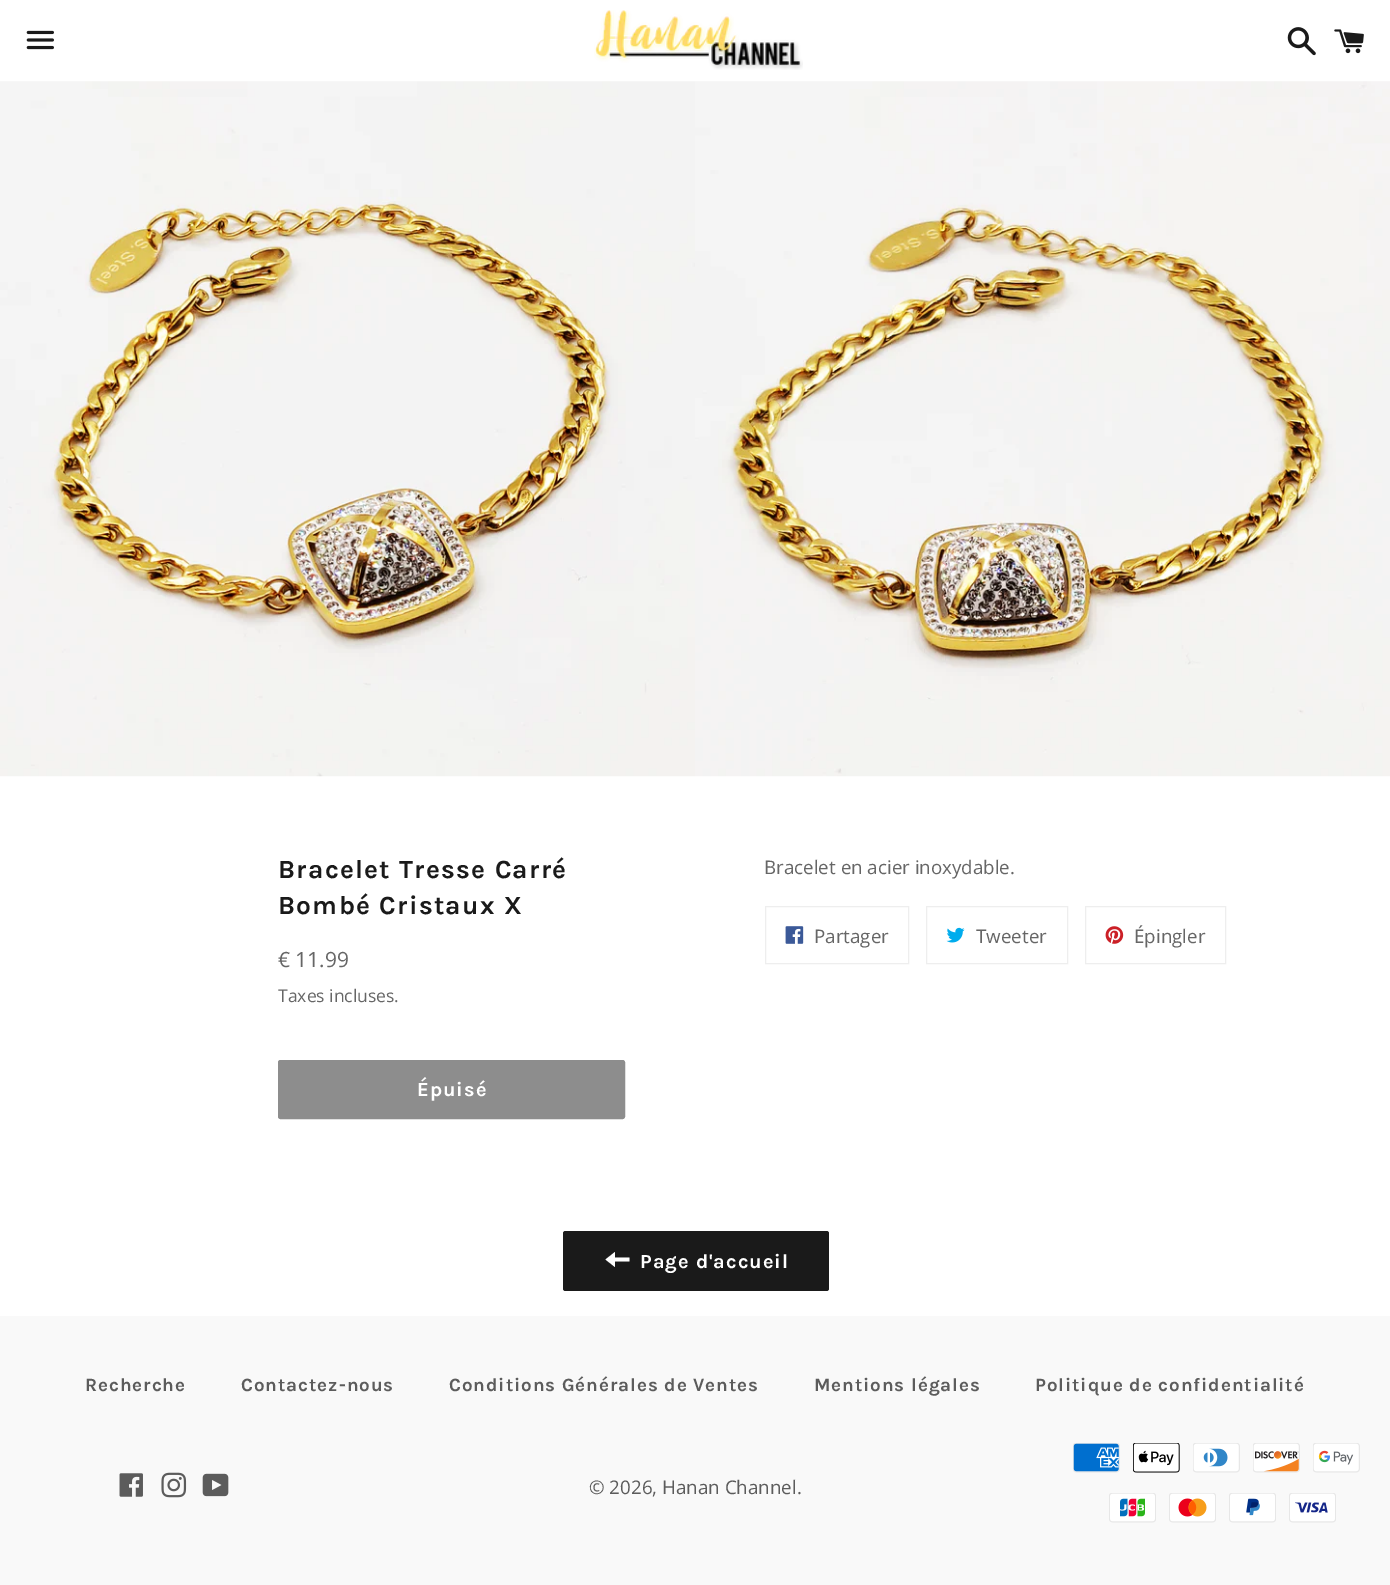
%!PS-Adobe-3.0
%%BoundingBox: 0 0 1390 1585
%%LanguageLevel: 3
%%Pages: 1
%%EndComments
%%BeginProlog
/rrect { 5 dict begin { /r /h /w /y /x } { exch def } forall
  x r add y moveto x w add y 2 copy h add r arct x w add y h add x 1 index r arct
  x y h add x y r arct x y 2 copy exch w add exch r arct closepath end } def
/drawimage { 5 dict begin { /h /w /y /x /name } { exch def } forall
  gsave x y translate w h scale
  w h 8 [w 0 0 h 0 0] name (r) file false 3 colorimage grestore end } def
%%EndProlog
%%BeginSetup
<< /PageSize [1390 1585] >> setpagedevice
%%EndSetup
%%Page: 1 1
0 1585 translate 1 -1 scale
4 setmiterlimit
1 setgray
0 0 1390 1585 rectfill
(images/1.raw) 26 30 28 20 drawimage
(images/2.raw) 594 10 209 60 drawimage
(images/3.raw) 1287 27 29 29 drawimage
(images/4.raw) 1334 29 30 25 drawimage
(images/5.raw) 0 81 695 696 drawimage
(images/6.raw) 695 81 695 696 drawimage
0.553 setgray
279.5 1061.5 344 56 1 rrect gsave fill grestore
3 setlinewidth
stroke
0.933 setgray
1 setlinewidth
765.5 906.5 143 57 rectstroke
(images/7.raw) 785 926 19 18 drawimage
926.5 906.5 141 57 rectstroke
(images/8.raw) 946 927 19 16 drawimage
1085.5 906.5 140 57 rectstroke
(images/9.raw) 1105 926 19 18 drawimage
0.102 setgray
563 1231 266 60 2.5 rrect fill
1 setgray
newpath 615 1257.5 moveto 615 1252 lineto 605.5 1259.5 lineto 615 1267 lineto 615 1261.5 lineto 629.5 1261.5 lineto 629.5 1257.5 lineto closepath fill
0.976 setgray
0 1316 1390 269 rectfill
(images/10.raw) 119 1473 24 24 drawimage
(images/11.raw) 161 1472 26 26 drawimage
(images/12.raw) 202 1473 27 24 drawimage
(images/13.raw) 1073 1443 47 30 drawimage
(images/14.raw) 1133 1443 47 30 drawimage
(images/15.raw) 1193 1443 47 30 drawimage
(images/16.raw) 1253 1443 47 30 drawimage
(images/17.raw) 1313 1443 47 30 drawimage
(images/18.raw) 1109 1493 47 30 drawimage
(images/19.raw) 1169 1493 47 30 drawimage
(images/20.raw) 1229 1493 47 30 drawimage
(images/21.raw) 1289 1493 47 30 drawimage
/Karla-Bold [26.25 0 0 -26.25 0 0] selectfont
0.102 setgray
278 878 moveto 1.3 0 (Bracelet Tresse Carré) ashow
278 914 moveto 1.3 0 (Bombé Cristaux X) ashow
/OpenSans-Regular [21 0 0 -21 0 0] selectfont
0.4 setgray
278 967 moveto (€ 11.99) show
/OpenSans-Regular [17.5 0 0 -17.5 0 0] selectfont
278 1002 moveto (Taxes incluses.) show
/Karla-Bold [20 0 0 -20 0 0] selectfont
1 setgray
417 1096 moveto 1 0 (Épuisé) ashow
/OpenSans-Regular [18.75 0 0 -18.75 0 0] selectfont
0.4 setgray
764 874 moveto (Bracelet en acier inoxydable.) show
814 943 moveto (Partager) show
976 943 moveto (Tweeter) show
1134 943 moveto (Épingler) show
/Karla-Bold [20 0 0 -20 0 0] selectfont
1 setgray
640 1268 moveto 1 0 (Page d'accueil) ashow
/Karla-Bold [18.75 0 0 -18.75 0 0] selectfont
0.361 setgray
85 1391 moveto 0.95 0 (Recherche) ashow
241 1391 moveto 0.95 0 (Contactez-nous) ashow
449 1391 moveto 0.95 0 (Conditions Générales de Ventes) ashow
814 1391 moveto 0.95 0 (Mentions légales) ashow
1035 1391 moveto 0.95 0 (Politique de confidentialité) ashow
/OpenSans-Regular [18.75 0 0 -18.75 0 0] selectfont
589 1494 moveto (© 2026, Hanan Channel.) show
showpage
%%EOF
